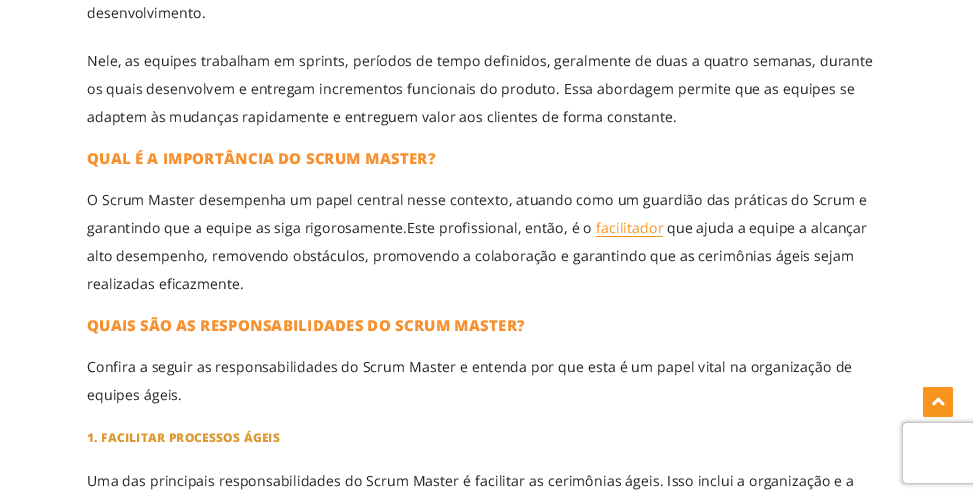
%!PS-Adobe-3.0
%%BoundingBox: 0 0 973 497
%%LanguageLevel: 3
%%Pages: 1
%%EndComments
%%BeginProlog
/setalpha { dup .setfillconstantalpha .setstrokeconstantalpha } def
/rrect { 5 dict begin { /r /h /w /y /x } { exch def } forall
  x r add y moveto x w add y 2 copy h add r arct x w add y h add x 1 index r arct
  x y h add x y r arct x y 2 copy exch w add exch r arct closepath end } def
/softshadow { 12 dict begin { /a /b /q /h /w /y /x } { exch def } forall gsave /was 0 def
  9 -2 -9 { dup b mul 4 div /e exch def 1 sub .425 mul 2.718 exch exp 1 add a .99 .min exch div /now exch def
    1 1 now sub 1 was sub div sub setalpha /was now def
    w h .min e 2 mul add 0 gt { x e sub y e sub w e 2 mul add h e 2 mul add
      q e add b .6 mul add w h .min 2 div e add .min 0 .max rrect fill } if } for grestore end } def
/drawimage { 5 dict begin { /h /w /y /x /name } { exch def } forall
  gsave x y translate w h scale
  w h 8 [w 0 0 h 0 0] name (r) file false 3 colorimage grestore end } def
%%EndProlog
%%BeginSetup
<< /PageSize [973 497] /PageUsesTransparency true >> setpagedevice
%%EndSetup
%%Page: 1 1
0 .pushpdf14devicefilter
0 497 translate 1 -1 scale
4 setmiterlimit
1 setgray
0 0 973 497 rectfill
0.969 0.58 0.118 setrgbcolor
596 236 67 1 rectfill
gsave
newpath 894 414 moveto 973 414 lineto 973 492 lineto 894 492 lineto closepath 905 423 moveto 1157 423 lineto 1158 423 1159 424 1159 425 curveto 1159 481 lineto 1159 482 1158 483 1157 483 curveto 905 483 lineto 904 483 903 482 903 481 curveto 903 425 lineto 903 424 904 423 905 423 curveto closepath eoclip newpath
0.502 setgray
903 423 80 60 2 2.5 1 softshadow
grestore
923 387 30 30 2 rrect fill
(images/1.raw) 932 397 13 9 drawimage
/OpenSans-Regular [14 0 0 -14 0 0] selectfont
0.129 0.145 0.161 setrgbcolor
87 18 moveto 0.2 0 (desenvolvimento.) ashow
87 66 moveto 0.2 0 (Nele, as equipes trabalham em sprints, períodos de tempo definidos, geralmente de duas a quatro semanas, durante) ashow
87 94 moveto 0.2 0 (os quais desenvolvem e entregam incrementos funcionais do produto. Essa abordagem permite que as equipes se) ashow
87 122 moveto 0.2 0 (adaptem às mudanças rapidamente e entreguem valor aos clientes de forma constante.) ashow
/OpenSans-ExtraBold [15 0 0 -15 0 0] selectfont
0.969 0.565 0.18 setrgbcolor
87 164 moveto 0.2 0 (QUAL É A IMPORTÂNCIA DO SCRUM MASTER?) ashow
/OpenSans-Regular [14 0 0 -14 0 0] selectfont
0.129 0.145 0.161 setrgbcolor
87 205 moveto 0.2 0 (O Scrum Master desempenha um papel central nesse contexto, atuando como um guardião das práticas do Scrum e) ashow
87 233 moveto 0.2 0 (garantindo que a equipe as siga rigorosamente.Este profissional, então, é o) ashow
0.969 0.58 0.118 setrgbcolor
596 233 moveto 0.2 0 (facilitador) ashow
0.129 0.145 0.161 setrgbcolor
667 233 moveto 0.2 0 (que ajuda a equipe a alcançar) ashow
87 261 moveto 0.2 0 (alto desempenho, removendo obstáculos, promovendo a colaboração e garantindo que as cerimônias ágeis sejam) ashow
87 289 moveto 0.2 0 (realizadas eficazmente.) ashow
/OpenSans-ExtraBold [15 0 0 -15 0 0] selectfont
0.969 0.565 0.18 setrgbcolor
87 331 moveto 0.2 0 (QUAIS SÃO AS RESPONSABILIDADES DO SCRUM MASTER?) ashow
/OpenSans-Regular [14 0 0 -14 0 0] selectfont
0.129 0.145 0.161 setrgbcolor
87 372 moveto 0.2 0 (Confira a seguir as responsabilidades do Scrum Master e entenda por que esta é um papel vital na organização de) ashow
87 400 moveto 0.2 0 (equipes ágeis.) ashow
/OpenSans-ExtraBold [12 0 0 -12 0 0] selectfont
0.867 0.6 0.2 setrgbcolor
87 442 moveto 0.2 0 (1. FACILITAR PROCESSOS ÁGEIS) ashow
/OpenSans-Regular [14 0 0 -14 0 0] selectfont
0.129 0.145 0.161 setrgbcolor
87 486 moveto 0.2 0 (Uma das principais responsabilidades do Scrum Master é facilitar as cerimônias ágeis. Isso inclui a organização e a) ashow
.poppdf14devicefilter showpage
%%EOF
